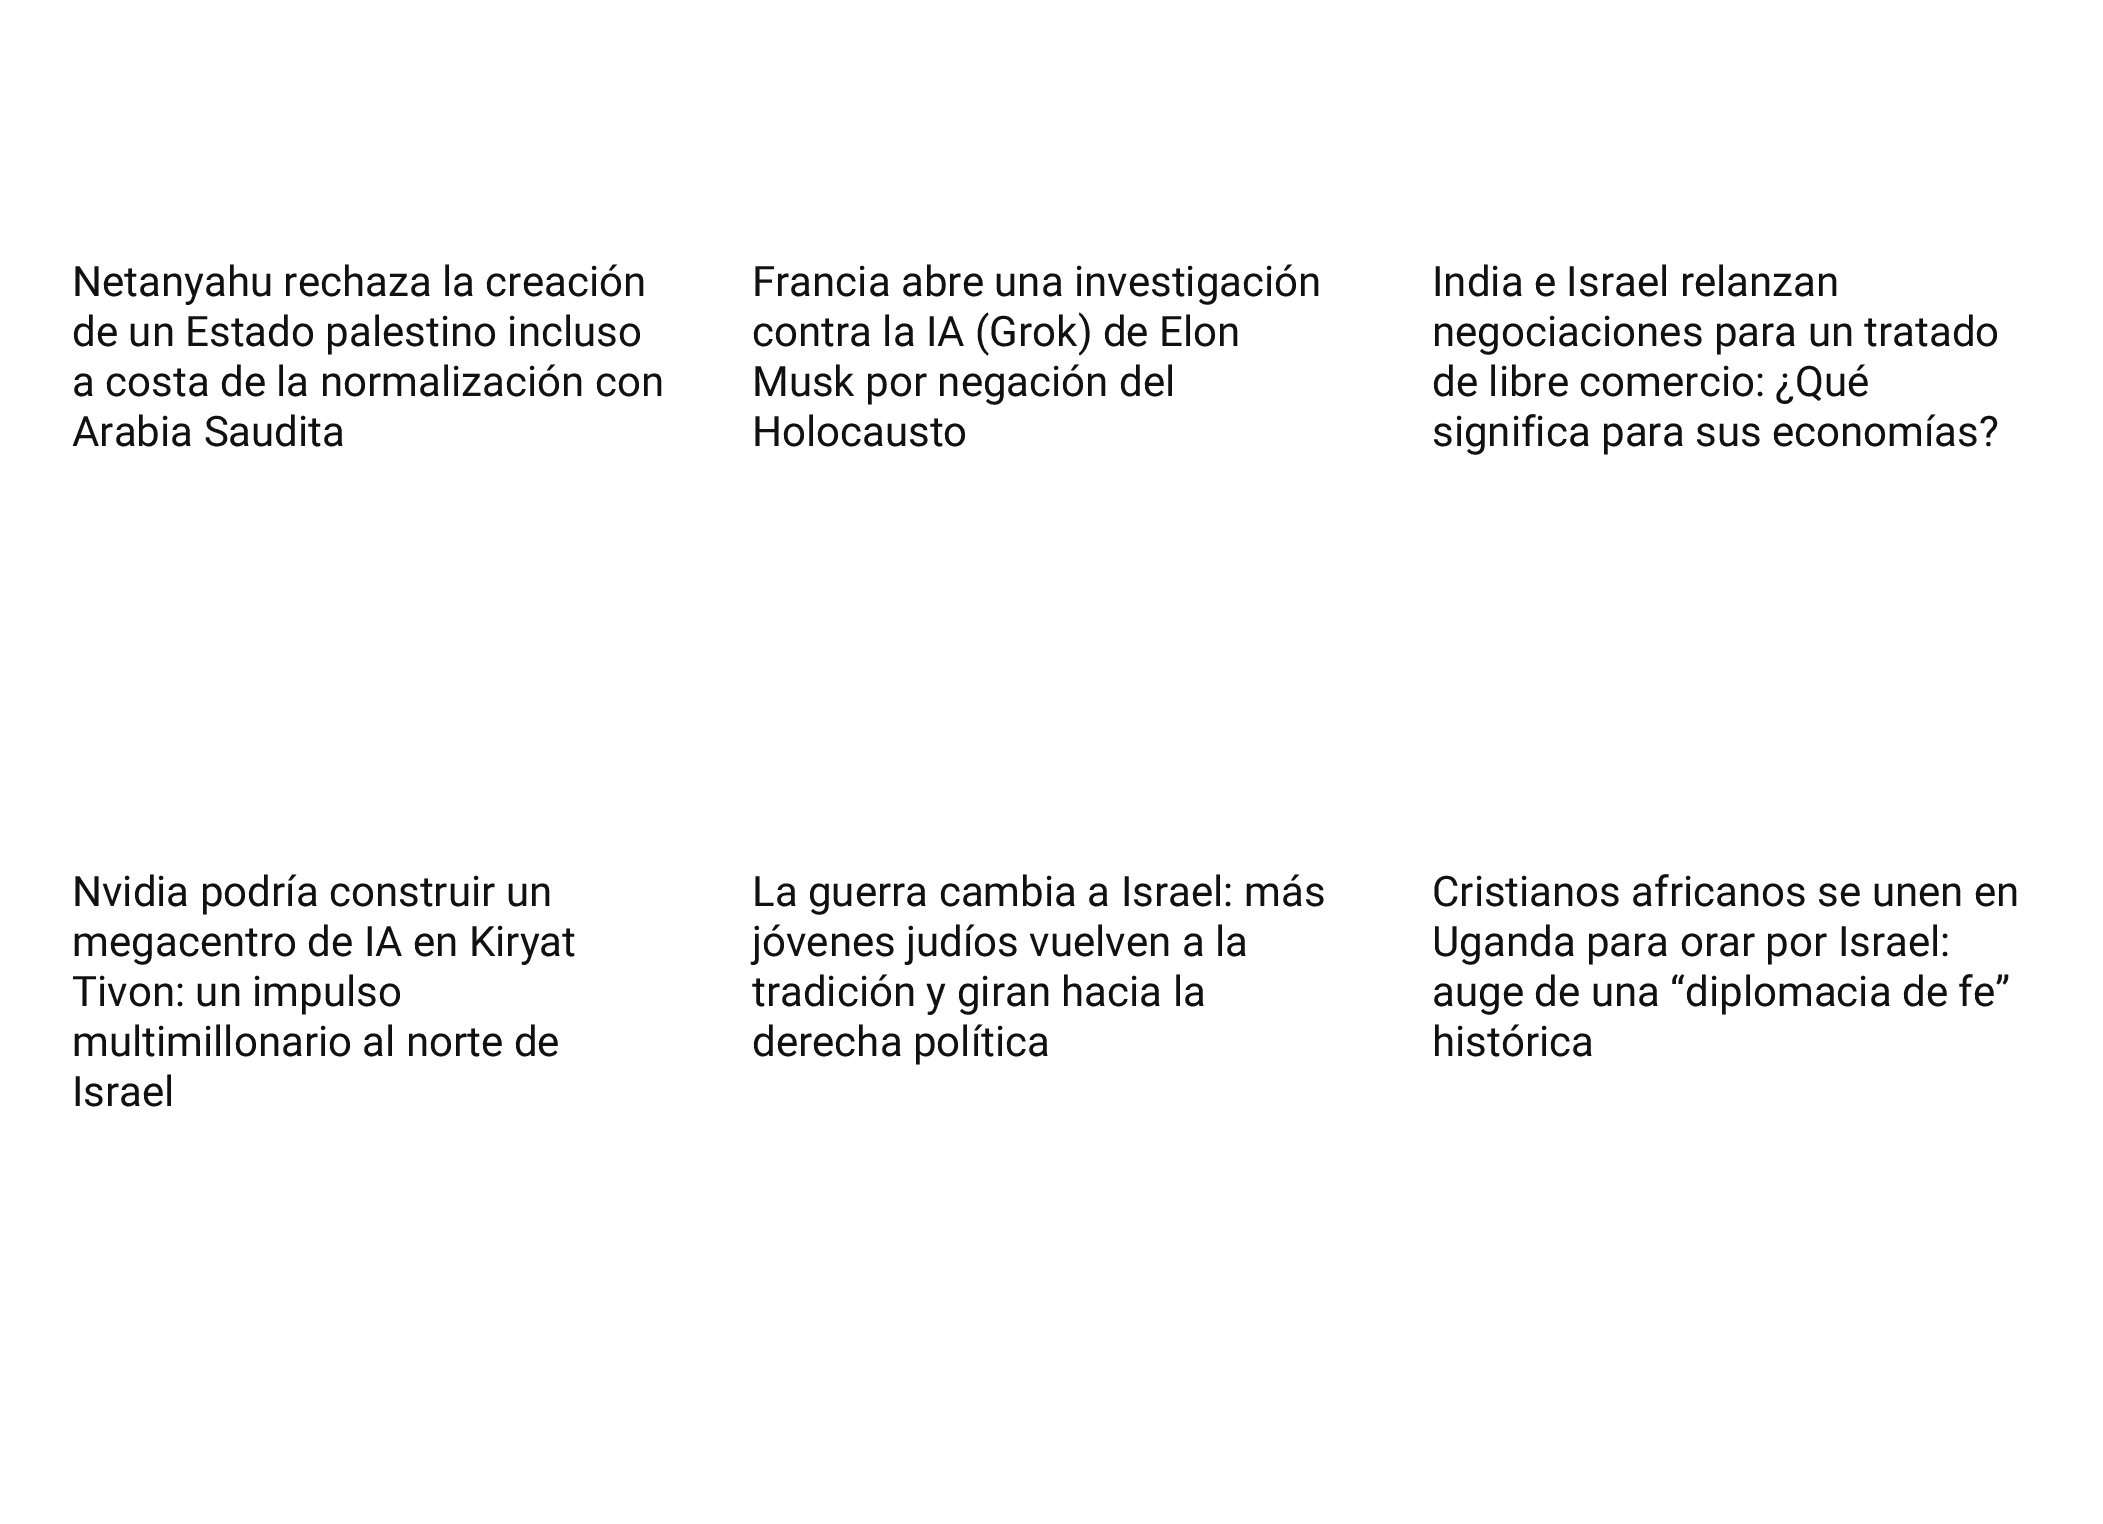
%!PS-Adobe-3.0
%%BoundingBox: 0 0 2103 1524
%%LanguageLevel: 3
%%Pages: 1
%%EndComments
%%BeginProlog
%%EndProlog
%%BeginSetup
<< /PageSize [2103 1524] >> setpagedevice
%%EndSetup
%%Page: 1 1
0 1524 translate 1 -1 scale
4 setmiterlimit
1 setgray
0 0 2103 1524 rectfill
/Roboto-Regular [42 0 0 -42 0 0] selectfont
0.067 setgray
72 296 moveto (Netanyahu rechaza la creación) show
72 346 moveto (de un Estado palestino incluso) show
72 396 moveto (a costa de la normalización con) show
72 446 moveto (Arabia Saudita) show
752 296 moveto (Francia abre una investigación) show
752 346 moveto (contra la IA \(Grok\) de Elon) show
752 396 moveto (Musk por negación del) show
752 446 moveto (Holocausto) show
1432 296 moveto (India e Israel relanzan) show
1432 346 moveto (negociaciones para un tratado) show
1432 396 moveto (de libre comercio: ¿Qué) show
1432 446 moveto (significa para sus economías?) show
72 906 moveto (Nvidia podría construir un) show
72 956 moveto (megacentro de IA en Kiryat) show
72 1006 moveto (Tivon: un impulso) show
72 1056 moveto (multimillonario al norte de) show
72 1106 moveto (Israel) show
752 906 moveto (La guerra cambia a Israel: más) show
752 956 moveto (jóvenes judíos vuelven a la) show
752 1006 moveto (tradición y giran hacia la) show
752 1056 moveto (derecha política) show
1432 906 moveto (Cristianos africanos se unen en) show
1432 956 moveto (Uganda para orar por Israel:) show
1432 1006 moveto (auge de una “diplomacia de fe”) show
1432 1056 moveto (histórica) show
showpage
%%EOF
